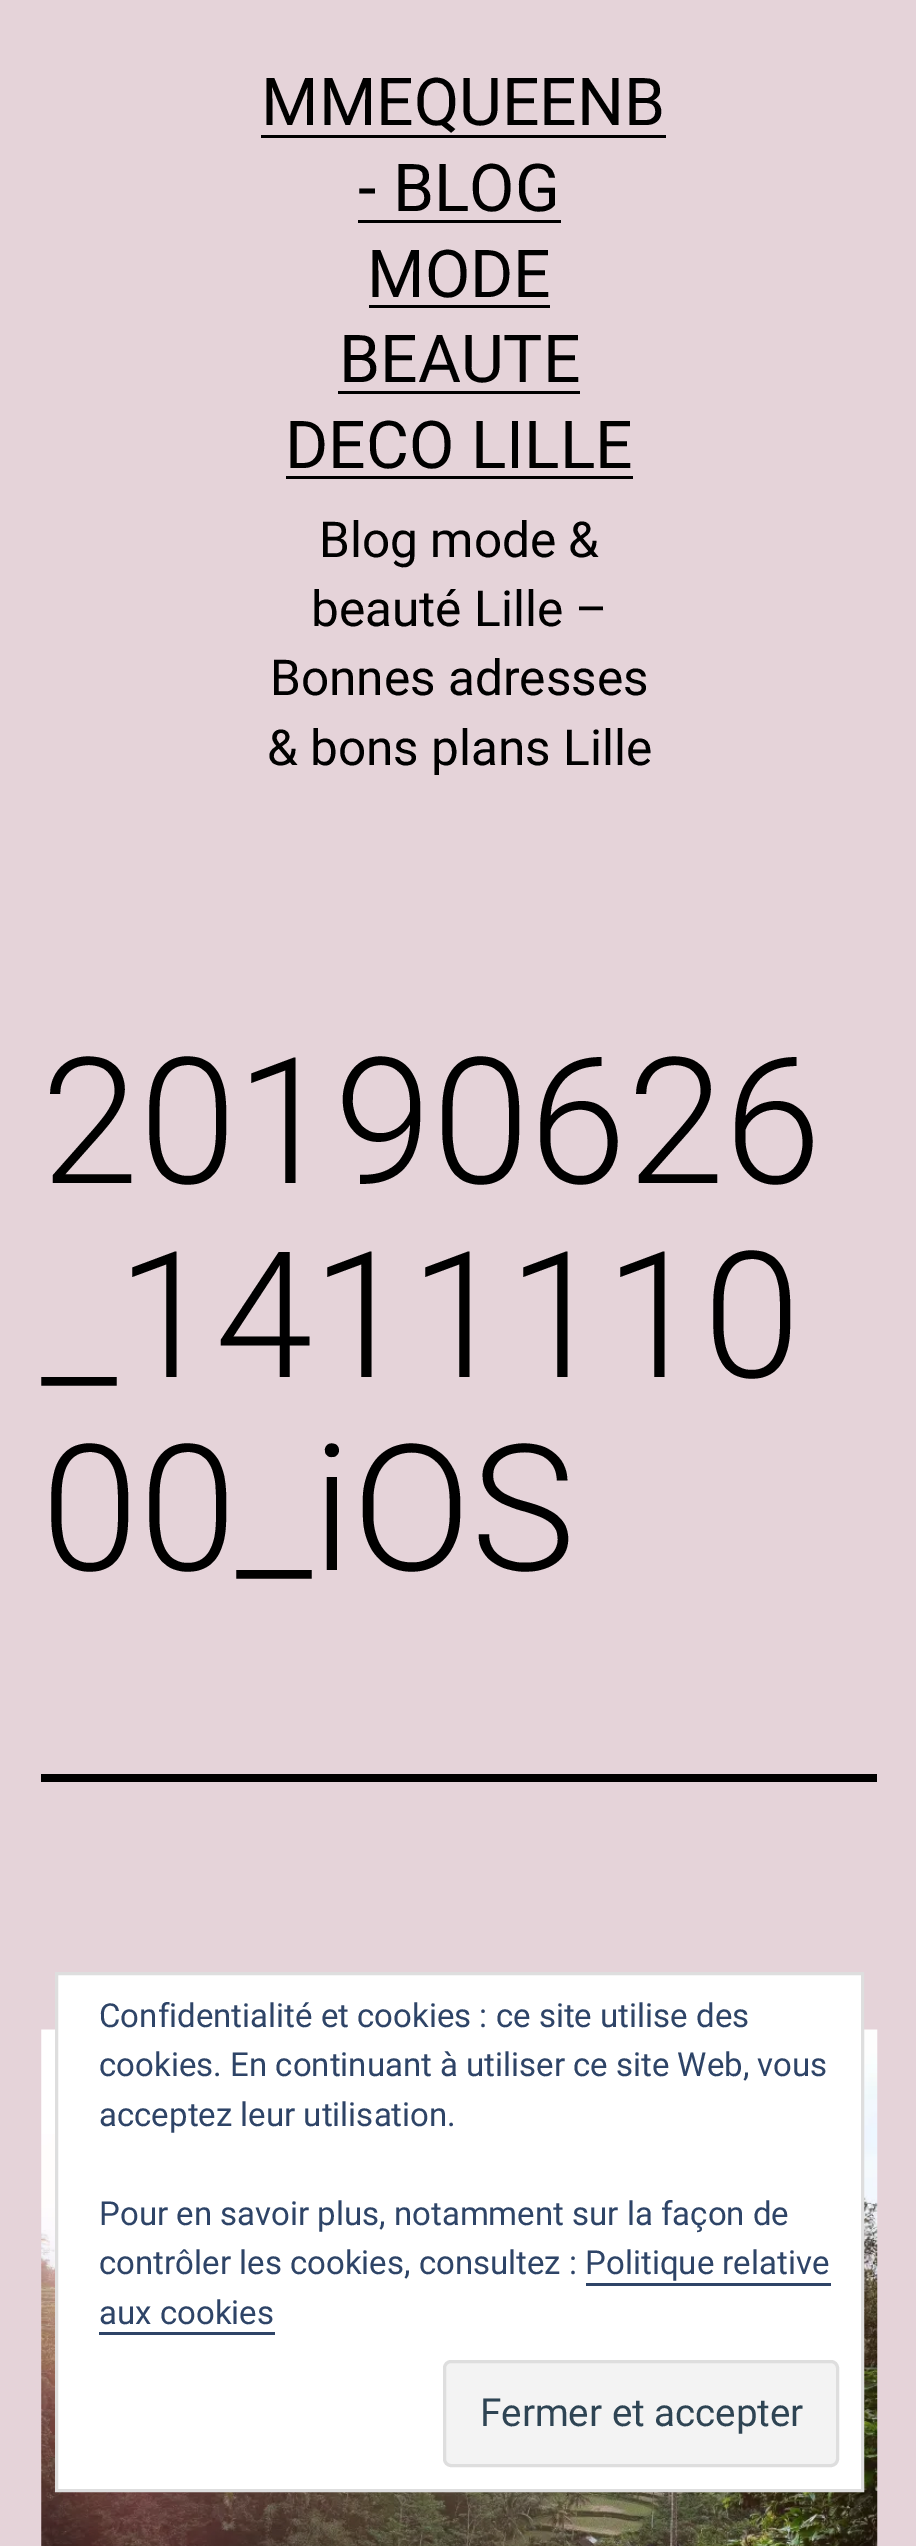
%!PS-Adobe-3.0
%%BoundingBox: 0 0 916 2546
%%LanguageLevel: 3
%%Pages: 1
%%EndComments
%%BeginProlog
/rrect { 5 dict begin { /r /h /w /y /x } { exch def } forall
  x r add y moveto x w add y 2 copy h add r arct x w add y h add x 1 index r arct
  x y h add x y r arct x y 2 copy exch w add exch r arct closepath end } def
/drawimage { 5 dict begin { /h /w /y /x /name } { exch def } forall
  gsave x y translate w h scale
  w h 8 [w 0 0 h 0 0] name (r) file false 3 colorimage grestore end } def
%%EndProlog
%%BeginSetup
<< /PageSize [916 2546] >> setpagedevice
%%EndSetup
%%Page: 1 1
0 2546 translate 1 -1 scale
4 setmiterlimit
0.898 0.827 0.851 setrgbcolor
0 0 916 2546 rectfill
0 setgray
261 135 405 3 rectfill
358 220 203 3 rectfill
369 305 181 3 rectfill
338 391 242 3 rectfill
286 476 347 3 rectfill
41 1774 836 8 rectfill
(images/1.raw) 41 2029 837 517 drawimage
1 setgray
newpath 56.5 1973.5 moveto 862.5 1973.5 lineto 862.5 2490.5 lineto 56.5 2490.5 lineto closepath gsave fill grestore
0.871 setgray
3 setlinewidth
stroke
0.18 0.267 0.404 setrgbcolor
586 2283 245 3 rectfill
99 2332 176 3 rectfill
0.953 setgray
444.5 2361.5 393 104 6.5 rrect gsave fill grestore
0.871 setgray
stroke
/Roboto-Regular [66 0 0 -66 0 0] selectfont
0 setgray
261 125 moveto (MMEQUEENB) show
358 211 moveto (- BLOG) show
367 297 moveto (MODE) show
339 382 moveto (BEAUTE) show
285 468 moveto (DECO LILLE) show
/Roboto-Regular [49.5 0 0 -49.5 0 0] selectfont
319 557 moveto (Blog mode &) show
311 626 moveto (beauté Lille –) show
270 695 moveto (Bonnes adresses) show
267 765 moveto (& bons plans Lille) show
/Roboto-Light [176 0 0 -176 0 0] selectfont
41 1183 moveto (20190626) show
41 1377 moveto (_1411110) show
41 1570 moveto (00_iOS) show
/Roboto-Regular [33 0 0 -33 0 0] selectfont
0.18 0.267 0.404 setrgbcolor
99 2027 moveto (Confidentialité et cookies : ce site utilise des) show
99 2076 moveto (cookies. En continuant à utiliser ce site Web, vous) show
99 2126 moveto (acceptez leur utilisation.) show
99 2225 moveto (Pour en savoir plus, notamment sur la façon de) show
99 2274 moveto (contrôler les cookies, consultez : Politique relative) show
99 2324 moveto (aux cookies) show
/Roboto-Regular [38.5 0 0 -38.5 0 0] selectfont
0.18 0.267 0.325 setrgbcolor
480 2426 moveto (Fermer et accepter) show
showpage
%%EOF
